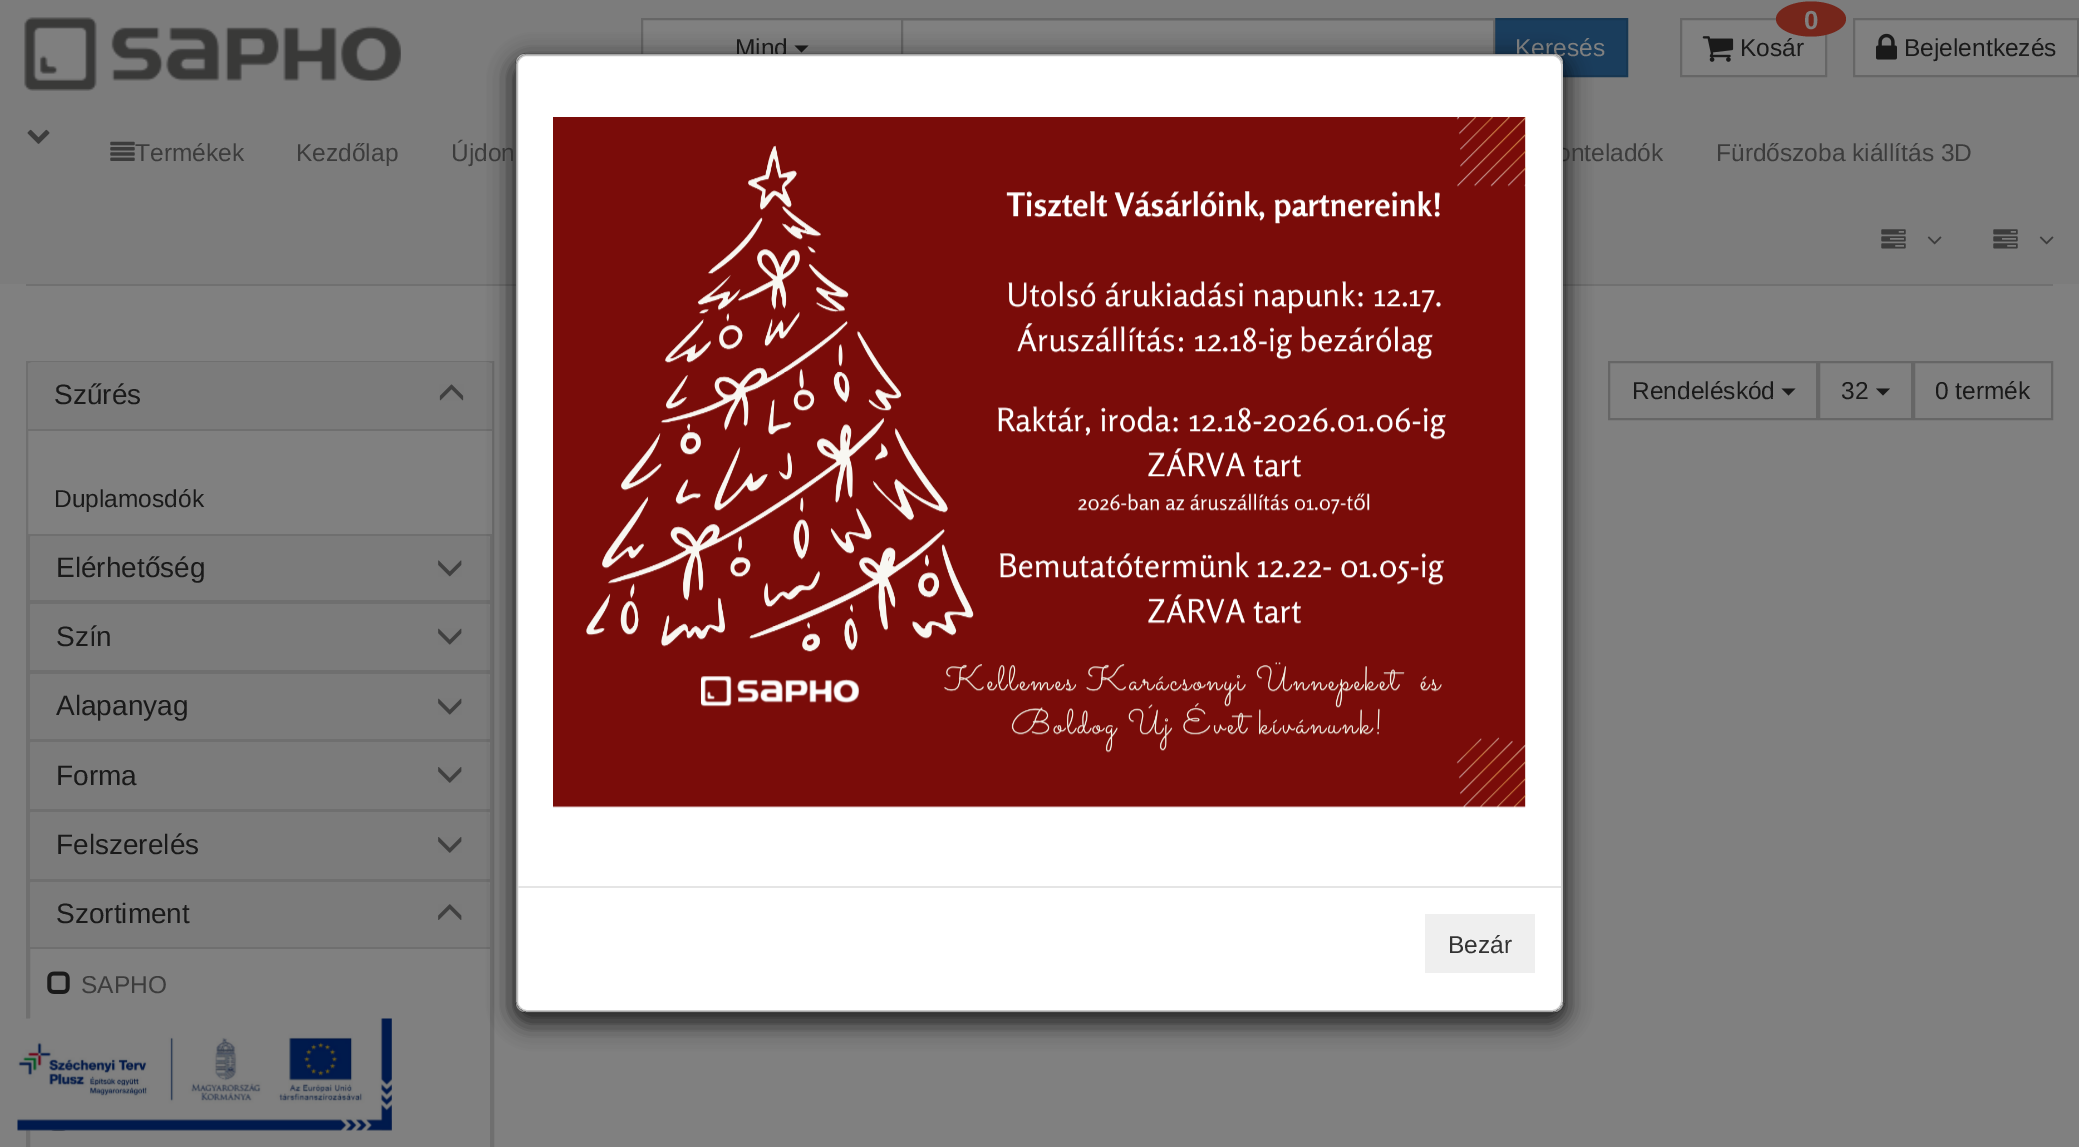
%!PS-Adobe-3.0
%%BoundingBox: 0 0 2079 1147
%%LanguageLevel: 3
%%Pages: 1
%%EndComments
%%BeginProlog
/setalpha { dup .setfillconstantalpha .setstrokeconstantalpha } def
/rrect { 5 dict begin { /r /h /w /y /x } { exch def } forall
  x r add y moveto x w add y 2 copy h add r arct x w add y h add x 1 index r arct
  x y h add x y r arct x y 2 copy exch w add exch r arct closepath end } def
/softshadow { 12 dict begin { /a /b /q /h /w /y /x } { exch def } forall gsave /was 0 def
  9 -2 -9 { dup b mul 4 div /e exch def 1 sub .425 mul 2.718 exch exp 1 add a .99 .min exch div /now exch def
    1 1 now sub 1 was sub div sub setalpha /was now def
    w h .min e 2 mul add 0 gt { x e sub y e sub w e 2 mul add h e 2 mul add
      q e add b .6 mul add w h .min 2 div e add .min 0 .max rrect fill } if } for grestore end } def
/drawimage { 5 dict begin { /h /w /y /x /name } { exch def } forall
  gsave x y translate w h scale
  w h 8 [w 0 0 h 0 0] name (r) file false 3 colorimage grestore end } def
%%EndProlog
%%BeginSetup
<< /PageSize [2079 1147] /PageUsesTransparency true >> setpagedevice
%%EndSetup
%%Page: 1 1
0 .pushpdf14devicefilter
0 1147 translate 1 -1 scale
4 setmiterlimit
0.502 setgray
0 0 2079 1147 rectfill
0.486 setgray
0 0 2079 284 rectfill
(images/1.raw) 24 17 377 74 drawimage
0.502 setgray
643 20 258 34 rectfill
0.4 setgray
2 setlinewidth
642 19 260 57 rectstroke
0.102 setgray
newpath 794.5 45.5 moveto 808.5 45.5 lineto 801.5 52.5 lineto closepath fill
0.502 setgray
903 21 590 33 rectfill
0.463 setgray
903 20 590 1 rectfill
0.102 0.239 0.361 setrgbcolor
newpath 1494 19 moveto 1627 19 lineto 1627 76 lineto 1494 76 lineto closepath gsave fill grestore
0.09 0.216 0.322 setrgbcolor
stroke
0.4 setgray
902 19 592 57 rectstroke
0.502 setgray
newpath 1681 19 moveto 1826 19 lineto 1826 76 lineto 1681 76 lineto closepath gsave fill grestore
0.4 setgray
stroke
0.459 0.149 0.106 setrgbcolor
newpath 1811 1.5 moveto 1830.5 1.5 1846 9.5 1846 19 curveto 1846 28.5 1830.5 36.5 1811 36.5 curveto 1791.5 36.5 1776 28.5 1776 19 curveto 1776 9.5 1791.5 1.5 1811 1.5 curveto closepath fill
(images/2.raw) 1702 36 32 26 drawimage
0.502 setgray
newpath 1854 19 moveto 2078 19 lineto 2078 76 lineto 1854 76 lineto closepath gsave fill grestore
0.4 setgray
stroke
(images/3.raw) 1876 33 21 27 drawimage
0.439 setgray
26 284 2027 2 rectfill
(images/4.raw) 27 129 23 15 drawimage
(images/5.raw) 110 141 25 20 drawimage
(images/6.raw) 1881 229 25 20 drawimage
(images/7.raw) 1927 236 15 9 drawimage
(images/6.raw) 1993 229 25 20 drawimage
(images/7.raw) 2039 236 15 9 drawimage
0.435 setgray
27 362 466 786 rectstroke
0.482 setgray
newpath 33 362 moveto 487 362 lineto 490 362 492 364 492 367 curveto 492 429 lineto 28 429 lineto 28 367 lineto 28 364 30 362 33 362 curveto closepath fill
(images/8.raw) 439 384 25 17 drawimage
0.435 setgray
28 429 464 2 rectfill
29 535 462 66 rectstroke
0.482 setgray
newpath 35 536 moveto 485 536 lineto 488 536 490 538 490 541 curveto 490 600 lineto 30 600 lineto 30 541 lineto 30 538 32 536 35 536 curveto closepath fill
(images/9.raw) 438 560 24 17 drawimage
0.435 setgray
29 603 462 68 rectstroke
0.482 setgray
newpath 35 604 moveto 485 604 lineto 488 604 490 606 490 609 curveto 490 670 lineto 30 670 lineto 30 609 lineto 30 606 32 604 35 604 curveto closepath fill
(images/10.raw) 438 628 24 17 drawimage
0.435 setgray
29 673 462 66 rectstroke
0.482 setgray
newpath 35 674 moveto 485 674 lineto 488 674 490 676 490 679 curveto 490 739 lineto 30 739 lineto 30 679 lineto 30 676 32 674 35 674 curveto closepath fill
(images/10.raw) 438 698 24 17 drawimage
0.435 setgray
29 741 462 68 rectstroke
0.482 setgray
newpath 35 742 moveto 485 742 lineto 488 742 490 744 490 747 curveto 490 809 lineto 30 809 lineto 30 747 lineto 30 744 32 742 35 742 curveto closepath fill
(images/11.raw) 438 767 24 16 drawimage
0.435 setgray
29 811 462 68 rectstroke
0.482 setgray
newpath 35 812 moveto 485 812 lineto 488 812 490 814 490 817 curveto 490 879 lineto 30 879 lineto 30 817 lineto 30 814 32 812 35 812 curveto closepath fill
(images/11.raw) 438 837 24 16 drawimage
0.435 setgray
29 881 462 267 rectstroke
0.482 setgray
newpath 35 882 moveto 485 882 lineto 488 882 490 884 490 887 curveto 490 947 lineto 30 947 lineto 30 887 lineto 30 884 32 882 35 882 curveto closepath fill
(images/12.raw) 438 904 24 16 drawimage
0.435 setgray
30 947 460 2 rectfill
(images/13.raw) 47 971 23 23 drawimage
(images/14.raw) 51 1130 15 1 drawimage
0.4 setgray
1609 362 208 57 rectstroke
0.102 setgray
newpath 1781.5 388.5 moveto 1795.5 388.5 lineto 1788.5 395.5 lineto closepath fill
0.4 setgray
1819 362 93 57 rectstroke
0.102 setgray
newpath 1876 388.5 moveto 1890 388.5 lineto 1883 395.5 lineto closepath fill
0.4 setgray
1914 362 138 57 rectstroke
(images/15.raw) 17 1018 375 113 drawimage
gsave
newpath 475 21 moveto 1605 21 lineto 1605 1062 lineto 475 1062 lineto closepath 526 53 moveto 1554 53 lineto 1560 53 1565 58 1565 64 curveto 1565 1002 lineto 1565 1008 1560 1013 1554 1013 curveto 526 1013 lineto 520 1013 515 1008 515 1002 curveto 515 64 lineto 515 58 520 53 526 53 curveto closepath eoclip newpath
0 setgray
515 61 1050 961 11 13 0.5 softshadow
grestore
/LiberationSans-Regular [24.5 0 0 -24.5 0 0] selectfont
0.102 setgray
735 56 moveto (Mind) show
0.502 setgray
1515 56 moveto (Keresés) show
/LiberationSans-Bold [26 0 0 -26 0 0] selectfont
1804 29 moveto (0) show
/LiberationSans-Regular [24.5 0 0 -24.5 0 0] selectfont
0.102 setgray
1740 56 moveto (Kosár) show
1904 56 moveto (Bejelentkezés) show
0.235 setgray
135 161 moveto (Termékek) show
296 161 moveto (Kezdőlap) show
451 161 moveto (Újdon) show
1557 161 moveto (onteladók) show
1716 161 moveto (Fürdőszoba kiállítás 3D) show
/LiberationSans-Regular [28 0 0 -28 0 0] selectfont
0.102 setgray
54 404 moveto (Szűrés) show
/LiberationSans-Regular [24.5 0 0 -24.5 0 0] selectfont
54 507 moveto (Duplamosdók) show
/LiberationSans-Regular [28 0 0 -28 0 0] selectfont
56 577 moveto (Elérhetőség) show
56 646 moveto (Szín) show
56 715 moveto (Alapanyag) show
56 785 moveto (Forma) show
56 854 moveto (Felszerelés) show
56 923 moveto (Szortiment) show
/LiberationSans-Regular [24.5 0 0 -24.5 0 0] selectfont
0.235 setgray
81 993 moveto (SAPHO) show
0.102 setgray
1632 399 moveto (Rendeléskód) show
1841 399 moveto (32) show
1935 399 moveto (0 termék) show
1 setgray
516 54 1047 958 9 rrect fill
0.2 setalpha
0 setgray
516 54 1048 958 10 rrect stroke
gsave
newpath 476 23 moveto 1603 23 lineto 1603 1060 lineto 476 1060 lineto closepath 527 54 moveto 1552 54 lineto 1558 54 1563 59 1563 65 curveto 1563 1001 lineto 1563 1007 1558 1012 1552 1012 curveto 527 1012 lineto 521 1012 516 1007 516 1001 curveto 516 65 lineto 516 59 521 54 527 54 curveto closepath eoclip newpath
1 setalpha
516 63 1047 957 11 13 0.5 softshadow
grestore
517 55 1045 956 10 rrect stroke
1 setalpha
(images/16.raw) 553 117 973 691 drawimage
0.898 setgray
518 886 1043 2 rectfill
0.937 setgray
1425 914 110 59 rectfill
0.2 setgray
1448 953 moveto (Bezár) show
.poppdf14devicefilter showpage
%%EOF
